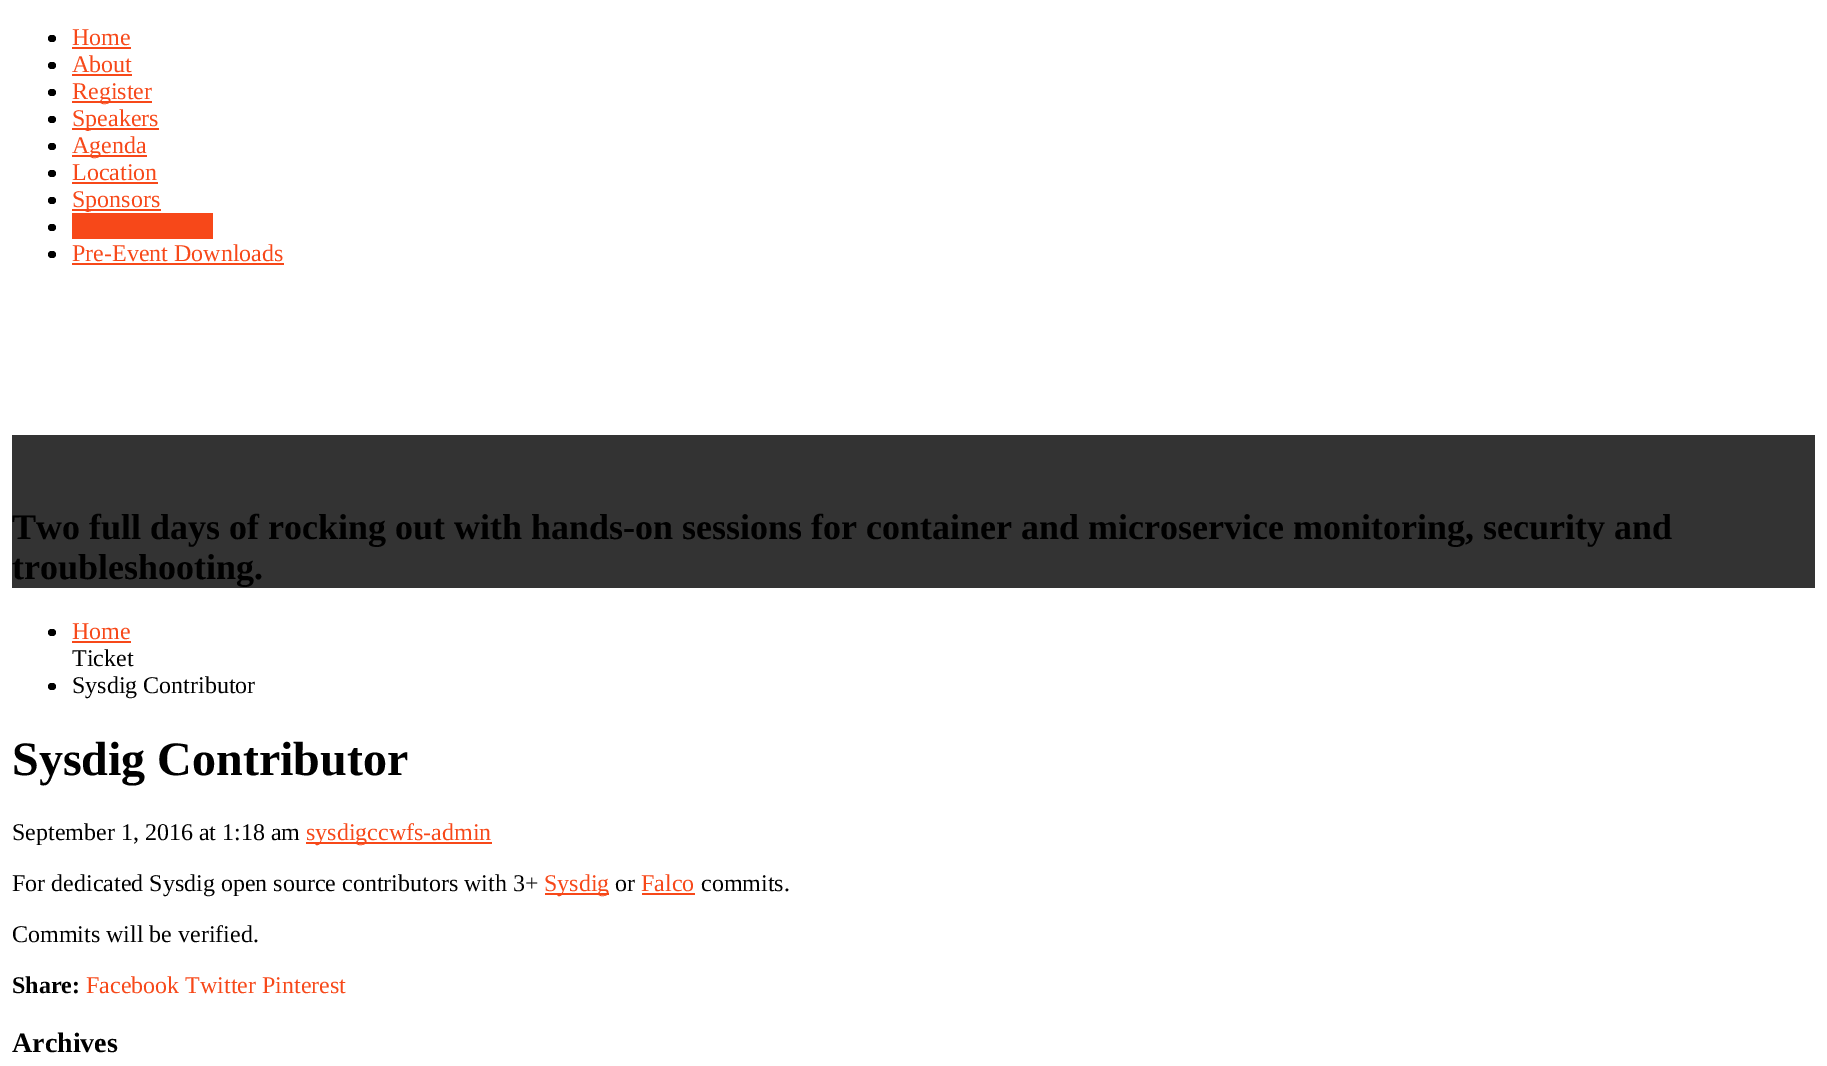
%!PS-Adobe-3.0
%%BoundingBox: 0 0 1827 1066
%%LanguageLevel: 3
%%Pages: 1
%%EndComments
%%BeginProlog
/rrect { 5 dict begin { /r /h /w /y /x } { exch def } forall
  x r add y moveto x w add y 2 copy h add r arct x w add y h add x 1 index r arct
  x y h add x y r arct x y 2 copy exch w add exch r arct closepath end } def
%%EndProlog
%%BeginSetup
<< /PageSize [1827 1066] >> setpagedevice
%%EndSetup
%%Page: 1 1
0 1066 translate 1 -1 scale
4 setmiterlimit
1 setgray
0 0 1827 1066 rectfill
0 setgray
48 35 8 7 3.5 rrect fill
0.969 0.282 0.098 setrgbcolor
72 47 59 2 rectfill
0 setgray
48 62 8 7 3.5 rrect fill
0.969 0.282 0.098 setrgbcolor
72 74 60 2 rectfill
0 setgray
48 89 8 7 3.5 rrect fill
0.969 0.282 0.098 setrgbcolor
72 101 80 2 rectfill
0 setgray
48 116 8 7 3.5 rrect fill
0.969 0.282 0.098 setrgbcolor
72 128 87 2 rectfill
0 setgray
48 143 8 7 3.5 rrect fill
0.969 0.282 0.098 setrgbcolor
72 155 75 2 rectfill
0 setgray
48 170 8 7 3.5 rrect fill
0.969 0.282 0.098 setrgbcolor
72 182 86 2 rectfill
0 setgray
48 197 8 7 3.5 rrect fill
0.969 0.282 0.098 setrgbcolor
72 209 89 2 rectfill
0 setgray
48 224 8 7 3.5 rrect fill
0.969 0.282 0.098 setrgbcolor
72 213 141 26 rectfill
0 setgray
48 251 8 7 3.5 rrect fill
0.969 0.282 0.098 setrgbcolor
72 263 212 2 rectfill
0.2 setgray
12 435 1803 153 rectfill
0 setgray
48 629 8 7 3.5 rrect fill
0.969 0.282 0.098 setrgbcolor
72 641 59 2 rectfill
0 setgray
48 683 8 7 3.5 rrect fill
0.969 0.282 0.098 setrgbcolor
306 842 186 2 rectfill
545 893 64 2 rectfill
642 893 53 2 rectfill
/LiberationSerif-Regular [24 0 0 -24 0 0] selectfont
72 45 moveto (Home) show
72 72 moveto (About) show
72 99 moveto (Register) show
72 126 moveto (Speakers) show
72 153 moveto (Agenda) show
72 180 moveto (Location) show
72 207 moveto (Sponsors) show
72 261 moveto (Pre-Event Downloads) show
/LiberationSerif-Bold [36 0 0 -36 0 0] selectfont
0 setgray
12 539 moveto (Two full days of rocking out with hands-on sessions for container and microservice monitoring, security and) show
12 579 moveto (troubleshooting.) show
/LiberationSerif-Regular [24 0 0 -24 0 0] selectfont
0.969 0.282 0.098 setrgbcolor
72 639 moveto (Home) show
0 setgray
72 666 moveto (Ticket) show
72 693 moveto (Sysdig Contributor) show
/LiberationSerif-Bold [48 0 0 -48 0 0] selectfont
12 775 moveto (Sysdig Contributor) show
/LiberationSerif-Regular [24 0 0 -24 0 0] selectfont
12 840 moveto (September 1, 2016 at 1:18 am) show
0.969 0.282 0.098 setrgbcolor
306 840 moveto (sysdigccwfs-admin) show
0 setgray
12 891 moveto (For dedicated Sysdig open source contributors with 3+) show
0.969 0.282 0.098 setrgbcolor
544 891 moveto (Sysdig) show
0 setgray
615 891 moveto (or) show
0.969 0.282 0.098 setrgbcolor
641 891 moveto (Falco) show
0 setgray
701 891 moveto (commits.) show
12 942 moveto (Commits will be verified.) show
/LiberationSerif-Bold [24 0 0 -24 0 0] selectfont
12 993 moveto (Share:) show
/LiberationSerif-Regular [24 0 0 -24 0 0] selectfont
0.969 0.282 0.098 setrgbcolor
86 993 moveto (Facebook Twitter Pinterest) show
/LiberationSerif-Bold [28 0 0 -28 0 0] selectfont
0 setgray
12 1052 moveto (Archives) show
showpage
%%EOF
